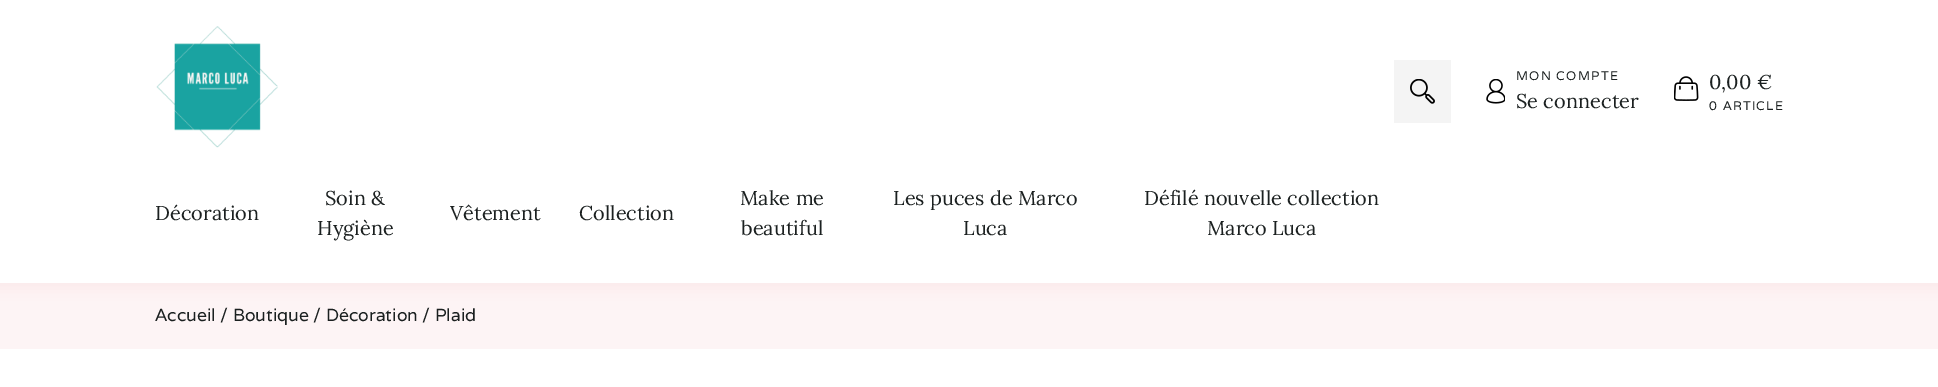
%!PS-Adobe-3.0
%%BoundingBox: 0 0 1938 387
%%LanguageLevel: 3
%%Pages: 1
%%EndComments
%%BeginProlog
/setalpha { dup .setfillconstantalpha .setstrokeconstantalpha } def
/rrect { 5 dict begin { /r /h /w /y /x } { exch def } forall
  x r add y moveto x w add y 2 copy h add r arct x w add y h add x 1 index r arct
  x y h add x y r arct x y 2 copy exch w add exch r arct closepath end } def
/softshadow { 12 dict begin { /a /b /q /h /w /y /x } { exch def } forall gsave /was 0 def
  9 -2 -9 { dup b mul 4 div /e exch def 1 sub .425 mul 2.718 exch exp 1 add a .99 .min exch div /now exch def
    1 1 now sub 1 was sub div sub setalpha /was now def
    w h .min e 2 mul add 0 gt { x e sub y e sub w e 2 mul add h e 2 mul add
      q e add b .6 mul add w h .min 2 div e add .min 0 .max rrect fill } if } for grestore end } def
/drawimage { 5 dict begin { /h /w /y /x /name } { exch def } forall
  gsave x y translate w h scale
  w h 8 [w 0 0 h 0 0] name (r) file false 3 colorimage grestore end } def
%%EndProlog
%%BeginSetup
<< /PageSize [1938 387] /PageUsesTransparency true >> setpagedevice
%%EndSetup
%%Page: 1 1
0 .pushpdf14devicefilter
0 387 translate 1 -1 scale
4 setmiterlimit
1 setgray
0 0 1938 387 rectfill
0.992 0.957 0.961 setrgbcolor
0 283 1938 66 rectfill
0.769 0.137 0.2 setrgbcolor
-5 -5 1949 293 0 7.5 0.06 softshadow
1 setgray
0 0 1938 283 rectfill
(images/1.raw) 156 26 122 122 drawimage
0.957 setgray
1394 60 57 63 rectfill
(images/2.raw) 1410 79 25 25 drawimage
(images/3.raw) 1486 79 19 25 drawimage
(images/4.raw) 1674 76 25 25 drawimage
/Varela-Regular [12.5 0 0 -12.5 0 0] selectfont
0.106 0.125 0.125 setrgbcolor
1516 80 moveto 1.25 0 (MON COMPTE) ashow
/Lora-Regular [20 0 0 -20 0 0] selectfont
1516 108 moveto (Se connecter) show
1709 89 moveto (0,00 €) show
/Varela-Regular [12.5 0 0 -12.5 0 0] selectfont
1709 110 moveto 1.25 0 (0 ARTICLE) ashow
/Lora-Regular [20 0 0 -20 0 0] selectfont
155 220 moveto (Décoration) show
325 205 moveto (Soin &) show
317 235 moveto (Hygiène) show
450 220 moveto (Vêtement) show
579 220 moveto (Collection) show
740 205 moveto (Make me) show
741 235 moveto (beautiful) show
893 205 moveto (Les puces de Marco) show
963 235 moveto (Luca) show
1144 205 moveto (Défilé nouvelle collection) show
1207 235 moveto (Marco Luca) show
/Varela-Regular [17.5 0 0 -17.5 0 0] selectfont
155 321 moveto (Accueil / Boutique / Décoration / Plaid) show
.poppdf14devicefilter showpage
%%EOF
